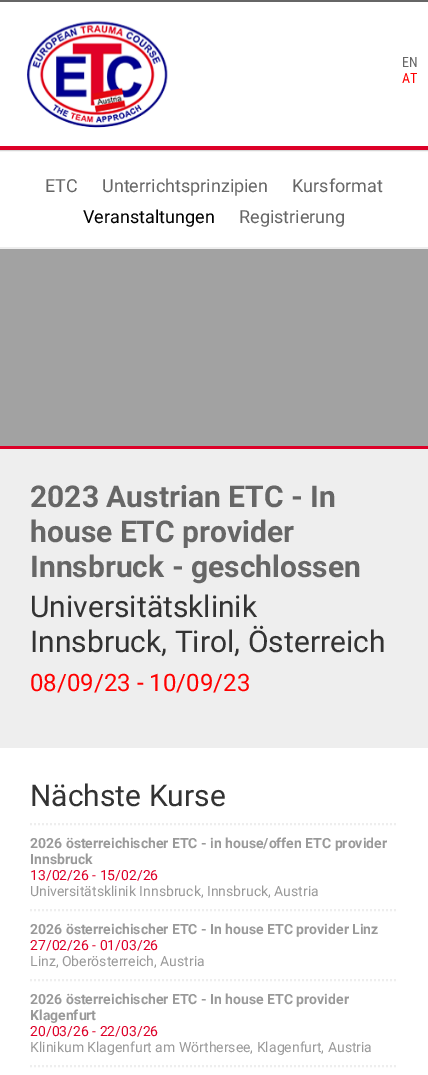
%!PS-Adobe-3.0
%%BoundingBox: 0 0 428 1075
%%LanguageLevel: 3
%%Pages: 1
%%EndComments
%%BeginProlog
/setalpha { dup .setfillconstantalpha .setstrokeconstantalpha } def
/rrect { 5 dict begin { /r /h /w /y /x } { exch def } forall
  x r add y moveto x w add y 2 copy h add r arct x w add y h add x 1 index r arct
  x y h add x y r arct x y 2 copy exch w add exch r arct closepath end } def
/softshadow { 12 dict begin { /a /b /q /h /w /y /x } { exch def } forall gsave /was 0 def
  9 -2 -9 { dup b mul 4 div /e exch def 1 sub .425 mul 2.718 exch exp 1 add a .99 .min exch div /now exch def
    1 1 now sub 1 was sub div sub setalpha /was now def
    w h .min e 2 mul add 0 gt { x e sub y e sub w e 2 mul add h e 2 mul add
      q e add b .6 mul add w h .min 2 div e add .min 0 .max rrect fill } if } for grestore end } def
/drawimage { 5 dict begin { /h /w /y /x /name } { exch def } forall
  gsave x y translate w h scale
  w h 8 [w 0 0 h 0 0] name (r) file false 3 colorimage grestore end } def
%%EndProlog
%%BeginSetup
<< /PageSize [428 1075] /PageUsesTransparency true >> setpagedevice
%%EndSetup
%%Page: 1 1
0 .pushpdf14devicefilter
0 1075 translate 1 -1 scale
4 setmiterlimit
1 setgray
0 0 428 1075 rectfill
gsave
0 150 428 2 rectclip
0 setgray
0 0 428 150 0 1 0.5 softshadow
grestore
0.4 setgray
0 0 428 2 rectfill
0.867 0 0.157 setrgbcolor
0 146 428 4 rectfill
(images/1.raw) 27 20 141 108 drawimage
0.933 setgray
0 247 428 2 rectfill
0 449 428 299 rectfill
0.867 0 0.157 setrgbcolor
0 446 428 3 rectfill
0.635 setgray
0 249 428 197 rectfill
0.933 setgray
2 setlinewidth
[2 2] 0 setdash
newpath 30 824 moveto 398 824 lineto stroke
newpath 30 910 moveto 398 910 lineto stroke
newpath 30 980 moveto 398 980 lineto stroke
newpath 30 1066 moveto 398 1066 lineto stroke
/RobotoCondensed-Regular [14 0 0 -14 0 0] selectfont
0.4 setgray
402 67 moveto (EN) show
1 0 0 setrgbcolor
402 83 moveto (AT) show
/Roboto-Regular [18 0 0 -18 0 0] selectfont
0.4 setgray
45 192 moveto (ETC) show
102 192 moveto (Unterrichtsprinzipien) show
292 192 moveto (Kursformat) show
0 setgray
83 223 moveto (Veranstaltungen) show
0.4 setgray
239 223 moveto (Registrierung) show
/Roboto-Bold [30 0 0 -30 0 0] selectfont
30 507 moveto (2023 Austrian ETC - In) show
30 542 moveto (house ETC provider) show
30 577 moveto (Innsbruck - geschlossen) show
/Roboto-Regular [30 0 0 -30 0 0] selectfont
0.2 setgray
30 617 moveto (Universitätsklinik) show
30 652 moveto (Innsbruck, Tirol, Österreich) show
/Roboto-Regular [24 0 0 -24 0 0] selectfont
1 0 0 setrgbcolor
30 691 moveto (08/09/23 - 10/09/23) show
/Roboto-Regular [30 0 0 -30 0 0] selectfont
0.2 setgray
30 806 moveto (Nächste Kurse) show
/Roboto-Bold [14 0 0 -14 0 0] selectfont
0.6 setgray
30 848 moveto (2026 österreichischer ETC - in house/offen ETC provider) show
30 864 moveto (Innsbruck) show
/Roboto-Regular [14 0 0 -14 0 0] selectfont
0.867 0 0.157 setrgbcolor
30 880 moveto (13/02/26 - 15/02/26) show
0.6 setgray
30 896 moveto (Universitätsklinik Innsbruck, Innsbruck, Austria) show
/Roboto-Bold [14 0 0 -14 0 0] selectfont
30 934 moveto (2026 österreichischer ETC - In house ETC provider Linz) show
/Roboto-Regular [14 0 0 -14 0 0] selectfont
0.867 0 0.157 setrgbcolor
30 950 moveto (27/02/26 - 01/03/26) show
0.6 setgray
30 966 moveto (Linz, Oberösterreich, Austria) show
/Roboto-Bold [14 0 0 -14 0 0] selectfont
30 1004 moveto (2026 österreichischer ETC - In house ETC provider) show
30 1020 moveto (Klagenfurt) show
/Roboto-Regular [14 0 0 -14 0 0] selectfont
0.867 0 0.157 setrgbcolor
30 1036 moveto (20/03/26 - 22/03/26) show
0.6 setgray
30 1052 moveto (Klinikum Klagenfurt am Wörthersee, Klagenfurt, Austria) show
.poppdf14devicefilter showpage
%%EOF
